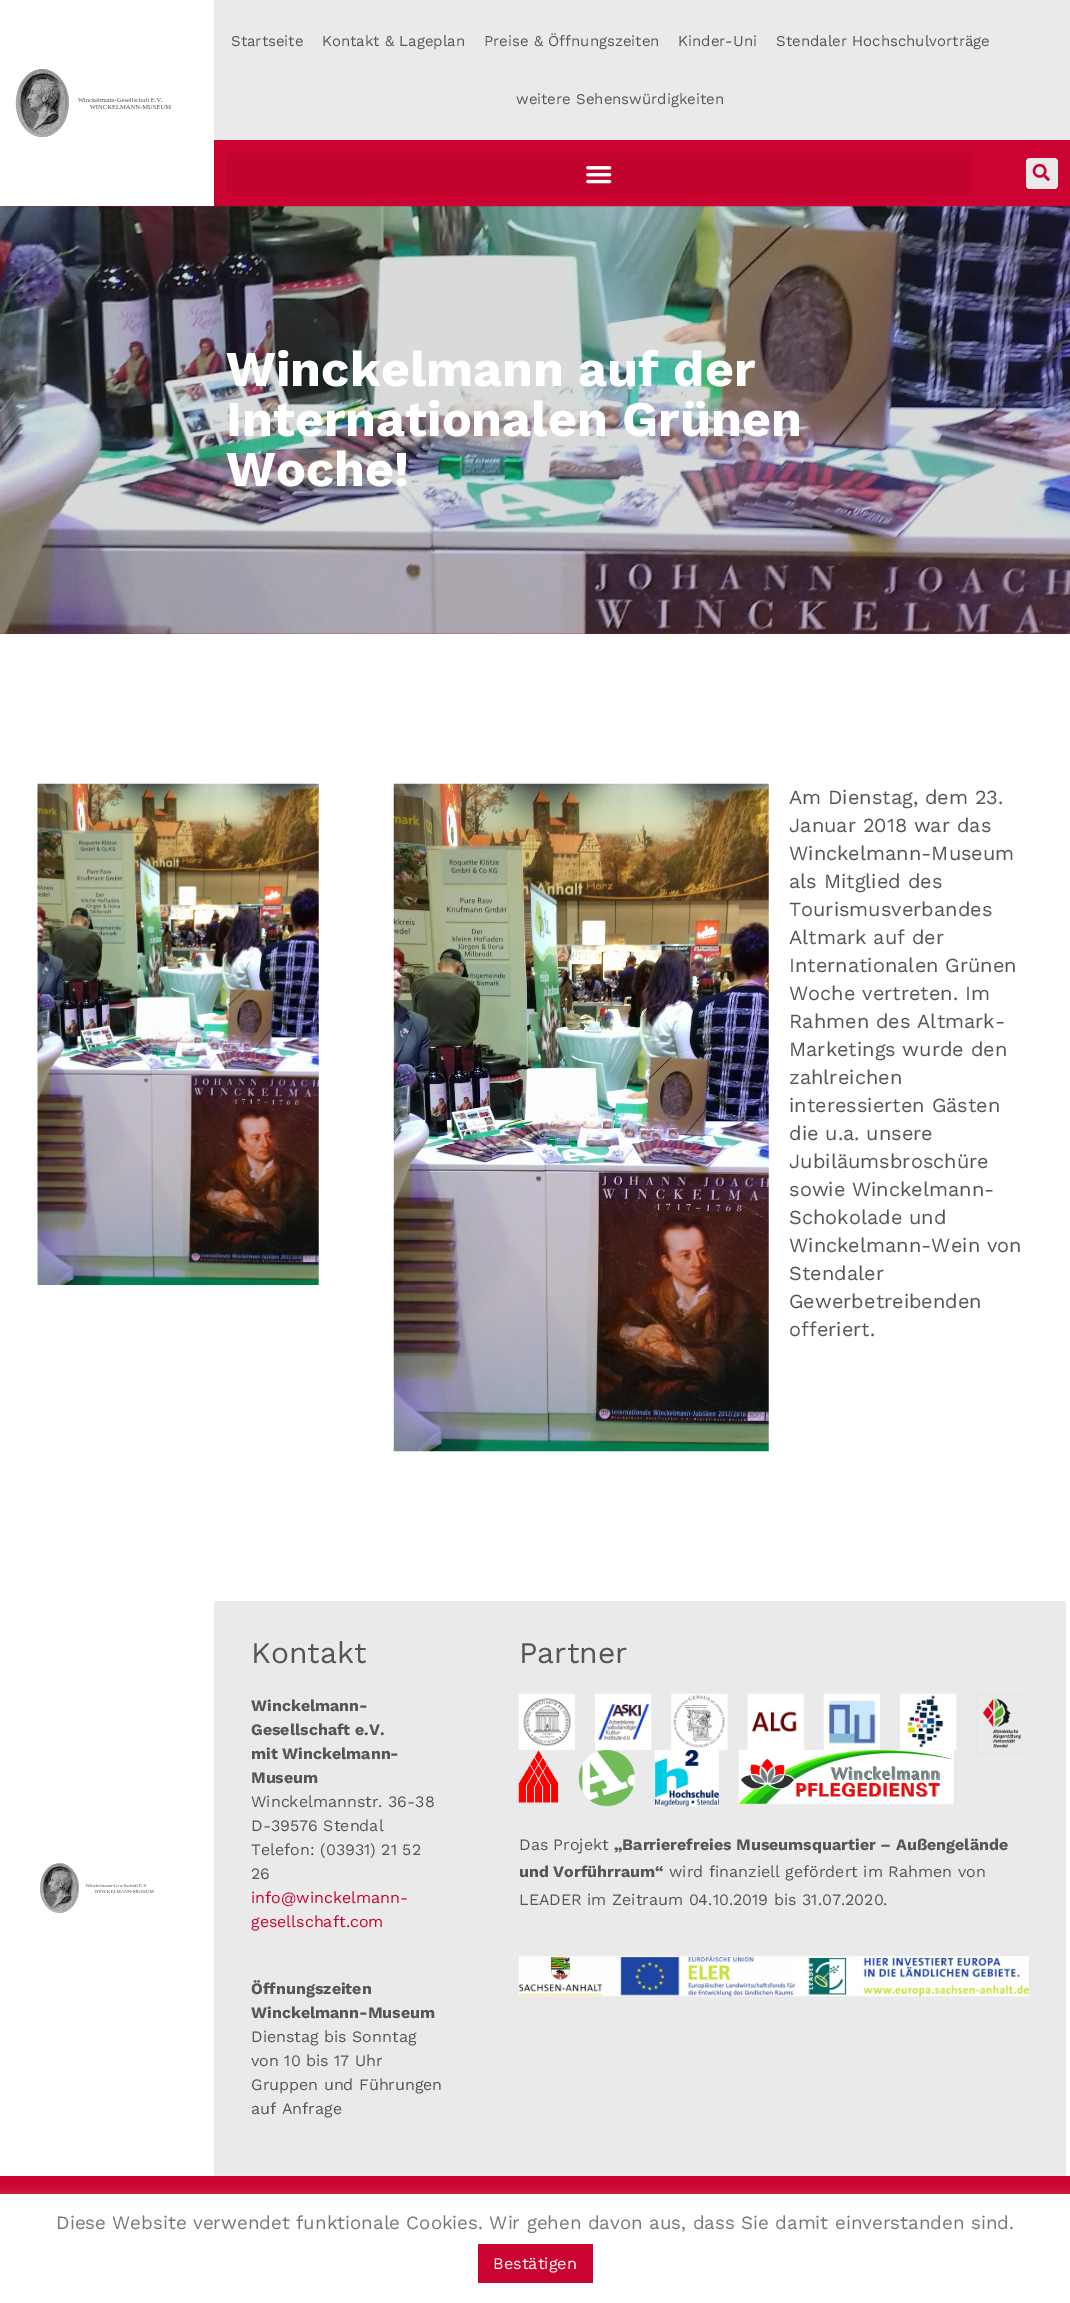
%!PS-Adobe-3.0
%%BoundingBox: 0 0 1070 2303
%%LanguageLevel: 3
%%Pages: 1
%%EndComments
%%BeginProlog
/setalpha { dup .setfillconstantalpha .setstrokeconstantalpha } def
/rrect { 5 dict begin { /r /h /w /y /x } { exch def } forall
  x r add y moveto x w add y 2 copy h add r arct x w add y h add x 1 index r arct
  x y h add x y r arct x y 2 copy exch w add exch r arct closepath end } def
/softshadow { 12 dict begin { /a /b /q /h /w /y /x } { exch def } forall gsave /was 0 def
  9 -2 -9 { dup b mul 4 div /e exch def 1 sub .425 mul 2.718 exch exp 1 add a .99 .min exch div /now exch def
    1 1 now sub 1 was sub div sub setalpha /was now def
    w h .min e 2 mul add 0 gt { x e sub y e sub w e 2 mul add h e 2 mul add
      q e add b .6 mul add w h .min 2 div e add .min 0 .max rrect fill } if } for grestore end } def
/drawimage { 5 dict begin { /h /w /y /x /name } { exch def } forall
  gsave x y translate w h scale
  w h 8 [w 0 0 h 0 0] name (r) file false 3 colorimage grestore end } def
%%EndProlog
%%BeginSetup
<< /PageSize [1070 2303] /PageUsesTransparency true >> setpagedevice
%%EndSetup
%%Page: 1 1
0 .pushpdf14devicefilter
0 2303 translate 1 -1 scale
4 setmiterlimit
1 setgray
0 0 1070 2303 rectfill
(images/1.raw) 15 69 156 68 drawimage
0.918 setgray
214 0 856 140 rectfill
0.796 0.012 0.188 setrgbcolor
214 140 856 66 rectfill
0.757 0.012 0.18 setrgbcolor
226 153 745 41 4 rrect fill
(images/2.raw) 586 166 26 18 drawimage
0.918 setgray
1026 158 32 31 4 rrect fill
(images/3.raw) 1032 163 18 18 drawimage
(images/4.raw) 0 206 1070 428 drawimage
(images/5.raw) 37 783 282 502 drawimage
(images/6.raw) 393 783 376 669 drawimage
(images/7.raw) 39 1863 115 50 drawimage
214 1601 852 575 rectfill
(images/8.raw) 518 1693 57 57 drawimage
(images/9.raw) 595 1693 57 57 drawimage
(images/10.raw) 671 1693 57 57 drawimage
(images/11.raw) 747 1693 57 57 drawimage
(images/12.raw) 823 1693 57 57 drawimage
(images/13.raw) 900 1693 57 57 drawimage
(images/14.raw) 976 1694 51 60 drawimage
(images/15.raw) 518 1750 40 53 drawimage
(images/16.raw) 578 1750 57 57 drawimage
(images/17.raw) 655 1750 64 57 drawimage
(images/18.raw) 738 1750 216 54 drawimage
(images/19.raw) 518 1956 511 41 drawimage
0.796 0.012 0.188 setrgbcolor
0 2176 1070 18 rectfill
0.675 0.671 0.671 setrgbcolor
0 2193 1070 110 0 6 0.3 softshadow
1 setgray
0 2194 1070 109 rectfill
0.796 0.012 0.188 setrgbcolor
478 2244 115 39 rectfill
/WorkSans-Regular [15 0 0 -15 0 0] selectfont
0.337 setgray
231 46 moveto (Startseite) show
322 46 moveto (Kontakt & Lageplan) show
484 46 moveto (Preise & Öffnungszeiten) show
678 46 moveto (Kinder-Uni) show
776 46 moveto (Stendaler Hochschulvorträge) show
516 104 moveto (weitere Sehenswürdigkeiten) show
/WorkSans-Bold [50 0 0 -50 0 0] selectfont
1 setgray
226 386 moveto (Winckelmann auf der) show
226 436 moveto (Internationalen Grünen) show
226 486 moveto (Woche!) show
/WorkSans-Regular [20 0 0 -20 0 0] selectfont
0.337 setgray
789 804 moveto (Am Dienstag, dem 23.) show
789 832 moveto (Januar 2018 war das) show
789 860 moveto (Winckelmann-Museum) show
789 888 moveto (als Mitglied des) show
789 916 moveto (Tourismusverbandes) show
789 944 moveto (Altmark auf der) show
789 972 moveto (Internationalen Grünen) show
789 1000 moveto (Woche vertreten. Im) show
789 1028 moveto (Rahmen des Altmark-) show
789 1056 moveto (Marketings wurde den) show
789 1084 moveto (zahlreichen) show
789 1112 moveto (interessierten Gästen) show
789 1140 moveto (die u.a. unsere) show
789 1168 moveto (Jubiläumsbroschüre) show
789 1196 moveto (sowie Winckelmann-) show
789 1224 moveto (Schokolade und) show
789 1252 moveto (Winckelmann-Wein von) show
789 1280 moveto (Stendaler) show
789 1308 moveto (Gewerbetreibenden) show
789 1336 moveto (offeriert.) show
/WorkSans-Regular [30 0 0 -30 0 0] selectfont
251 1663 moveto (Kontakt) show
/WorkSans-Bold [16 0 0 -16 0 0] selectfont
251 1711 moveto (Winckelmann-) show
251 1735 moveto (Gesellschaft e.V.) show
251 1759 moveto (mit Winckelmann-) show
251 1783 moveto (Museum) show
/WorkSans-Regular [16 0 0 -16 0 0] selectfont
251 1807 moveto (Winckelmannstr. 36-38) show
251 1831 moveto (D-39576 Stendal) show
251 1855 moveto (Telefon: \(03931\) 21 52) show
251 1879 moveto (26) show
0.796 0.012 0.188 setrgbcolor
251 1903 moveto (info@winckelmann-) show
251 1927 moveto (gesellschaft.com) show
/WorkSans-Bold [16 0 0 -16 0 0] selectfont
0.337 setgray
251 1994 moveto (Öffnungszeiten) show
251 2018 moveto (Winckelmann-Museum) show
/WorkSans-Regular [16 0 0 -16 0 0] selectfont
251 2042 moveto (Dienstag bis Sonntag) show
251 2066 moveto (von 10 bis 17 Uhr) show
251 2090 moveto (Gruppen und Führungen) show
251 2114 moveto (auf Anfrage) show
/WorkSans-Regular [30 0 0 -30 0 0] selectfont
519 1663 moveto (Partner) show
/WorkSans-Regular [16 0 0 -16 0 0] selectfont
519 1850 moveto (Das Projekt) show
/WorkSans-Bold [16 0 0 -16 0 0] selectfont
614 1850 moveto („Barrierefreies Museumsquartier – Außengelände) show
519 1877 moveto (und Vorführraum“) show
/WorkSans-Regular [16 0 0 -16 0 0] selectfont
669 1877 moveto (wird finanziell gefördert im Rahmen von) show
519 1905 moveto (LEADER im Zeitraum 04.10.2019 bis 31.07.2020.) show
/WorkSans-Regular [18.75 0 0 -18.75 0 0] selectfont
0.467 setgray
56 2229 moveto (Diese Website verwendet funktionale Cookies. Wir gehen davon aus, dass Sie damit einverstanden sind.) show
/WorkSans-Regular [16.25 0 0 -16.25 0 0] selectfont
1 setgray
493 2269 moveto (Bestätigen) show
.poppdf14devicefilter showpage
%%EOF
